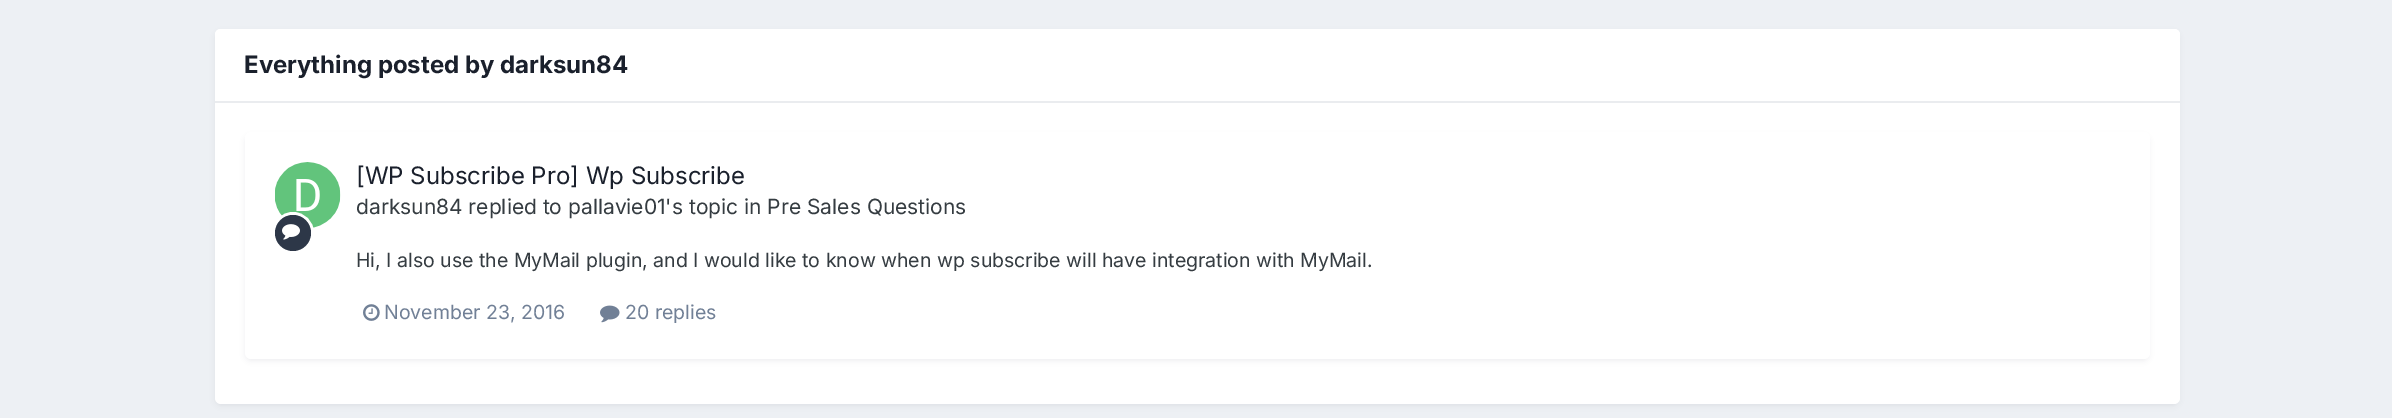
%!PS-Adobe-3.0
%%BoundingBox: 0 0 2392 418
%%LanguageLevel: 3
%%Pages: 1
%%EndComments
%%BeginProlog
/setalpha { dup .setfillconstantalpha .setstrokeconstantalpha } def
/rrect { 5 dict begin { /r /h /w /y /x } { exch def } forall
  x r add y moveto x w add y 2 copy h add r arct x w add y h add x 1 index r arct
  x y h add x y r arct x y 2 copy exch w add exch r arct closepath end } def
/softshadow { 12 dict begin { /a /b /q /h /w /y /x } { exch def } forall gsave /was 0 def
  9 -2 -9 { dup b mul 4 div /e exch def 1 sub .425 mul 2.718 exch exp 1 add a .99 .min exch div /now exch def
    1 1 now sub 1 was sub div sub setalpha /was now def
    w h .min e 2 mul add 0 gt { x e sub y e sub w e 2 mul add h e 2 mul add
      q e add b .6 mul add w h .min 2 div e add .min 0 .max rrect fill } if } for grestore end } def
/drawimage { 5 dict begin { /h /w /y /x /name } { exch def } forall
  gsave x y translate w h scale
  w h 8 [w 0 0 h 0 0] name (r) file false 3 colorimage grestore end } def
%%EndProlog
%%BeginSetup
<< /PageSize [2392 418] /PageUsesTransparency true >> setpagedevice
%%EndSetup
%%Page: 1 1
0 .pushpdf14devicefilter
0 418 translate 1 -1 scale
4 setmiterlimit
0.929 0.941 0.957 setrgbcolor
0 0 2392 418 rectfill
0.176 0.216 0.282 setrgbcolor
216 33 1962 372 5 3 0.1 softshadow
1 setgray
215 29 1965 375 6 rrect fill
newpath 221 29 moveto 2174 29 lineto 2177.5 29 2180 31.5 2180 35 curveto 2180 102 lineto 215 102 lineto 215 35 lineto 215 31.5 217.5 29 221 29 curveto closepath fill
0.918 0.925 0.937 setrgbcolor
215 101 1965 2 rectfill
0.176 0.216 0.282 setrgbcolor
246 137 1902 223 5 3 0.1 softshadow
1 setgray
245 132 1905 227 6 rrect fill
(images/1.raw) 275 162 66 66 drawimage
3 setlinewidth
newpath 293 233 19.5 0 360 arc closepath stroke
0.176 0.216 0.282 setrgbcolor
newpath 293 233 18 0 360 arc closepath fill
(images/2.raw) 282 224 18 16 drawimage
(images/3.raw) 363 304 17 17 drawimage
(images/4.raw) 600 305 20 18 drawimage
/Inter-Bold [24 0 0 -24 0 0] selectfont
0.102 0.125 0.173 setrgbcolor
244 73 moveto (Everything posted by darksun84) show
/Inter-Regular [24 0 0 -24 0 0] selectfont
356 184 moveto ([WP Subscribe Pro] Wp Subscribe) show
/Inter-Regular [21 0 0 -21 0 0] selectfont
0.208 0.235 0.255 setrgbcolor
356 214 moveto (darksun84 replied to pallavie01's topic in Pre Sales Questions) show
/Inter-Regular [19.5 0 0 -19.5 0 0] selectfont
356 267 moveto (Hi, I also use the MyMail plugin, and I would like to know when wp subscribe will have integration with MyMail.) show
0.443 0.502 0.588 setrgbcolor
384 319 moveto (November 23, 2016) show
625 319 moveto (20 replies) show
.poppdf14devicefilter showpage
%%EOF
